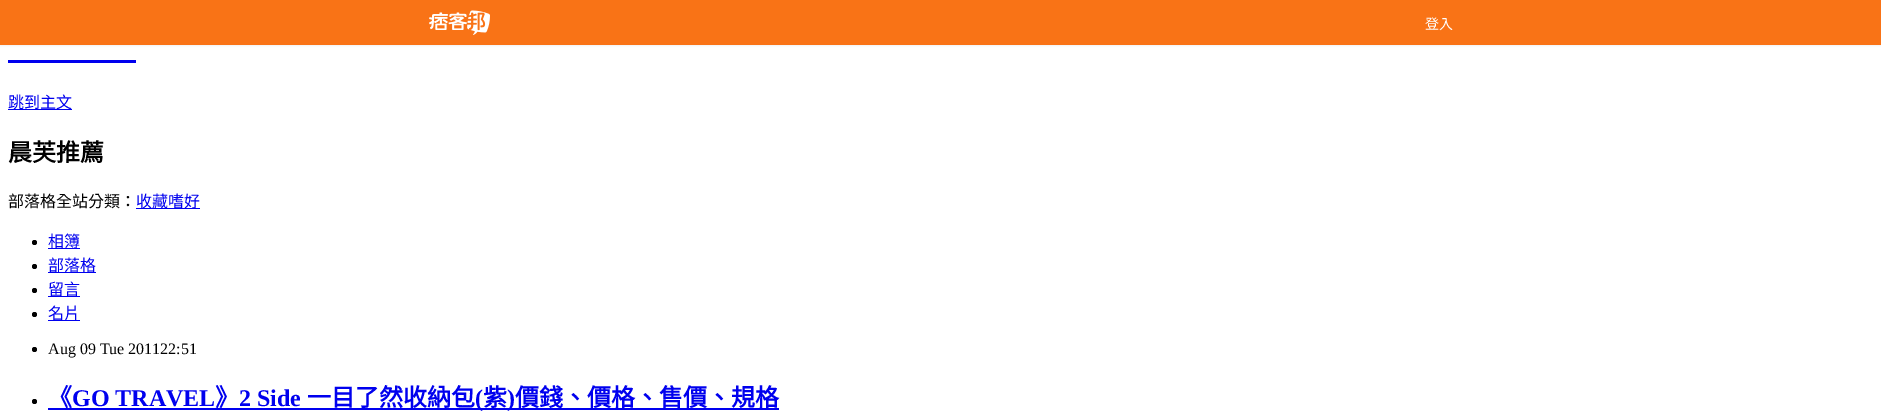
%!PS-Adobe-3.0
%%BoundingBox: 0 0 1881 413
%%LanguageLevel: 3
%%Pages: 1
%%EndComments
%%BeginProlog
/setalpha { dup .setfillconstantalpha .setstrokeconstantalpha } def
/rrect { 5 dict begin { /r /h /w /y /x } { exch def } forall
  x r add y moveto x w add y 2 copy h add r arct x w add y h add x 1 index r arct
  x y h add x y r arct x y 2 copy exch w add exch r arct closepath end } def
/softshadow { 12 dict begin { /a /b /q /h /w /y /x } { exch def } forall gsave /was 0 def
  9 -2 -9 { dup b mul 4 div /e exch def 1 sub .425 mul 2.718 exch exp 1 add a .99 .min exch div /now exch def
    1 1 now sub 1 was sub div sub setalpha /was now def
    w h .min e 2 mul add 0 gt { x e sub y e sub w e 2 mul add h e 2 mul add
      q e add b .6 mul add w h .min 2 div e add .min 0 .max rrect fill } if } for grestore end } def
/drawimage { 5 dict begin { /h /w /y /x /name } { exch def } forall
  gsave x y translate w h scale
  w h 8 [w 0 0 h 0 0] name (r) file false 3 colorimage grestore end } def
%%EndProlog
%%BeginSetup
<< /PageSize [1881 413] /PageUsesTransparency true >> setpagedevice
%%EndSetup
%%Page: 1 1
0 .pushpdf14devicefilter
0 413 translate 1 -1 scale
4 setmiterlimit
1 setgray
0 0 1881 413 rectfill
0 setgray
0 1 1881 45 0 1 0.05 softshadow
0.976 0.451 0.086 setrgbcolor
0 0 1881 45 rectfill
(images/1.raw) 429 10 61 25 drawimage
0 0 0.933 setrgbcolor
8 60 128 3 rectfill
8 109 64 1 rectfill
136 208 64 1 rectfill
0 setgray
newpath 34.5 242.5 2.5 0 360 arc closepath fill
0 0 0.933 setrgbcolor
48 248 32 1 rectfill
0 setgray
newpath 34.5 266.5 2.5 0 360 arc closepath fill
0 0 0.933 setrgbcolor
48 272 48 1 rectfill
0 setgray
newpath 34.5 290.5 2.5 0 360 arc closepath fill
0 0 0.933 setrgbcolor
48 296 32 1 rectfill
0 setgray
newpath 34.5 314.5 2.5 0 360 arc closepath fill
0 0 0.933 setrgbcolor
48 320 32 1 rectfill
0 setgray
newpath 34.5 349.5 2.5 0 360 arc closepath fill
newpath 34.5 401.5 2.5 0 360 arc closepath fill
0 0 0.933 setrgbcolor
48 408 731 2 rectfill
/NotoSansCJKTC-Regular [14 0 0 -14 0 0] selectfont
1 setgray
1425 29 moveto (登入) show
/NotoSansCJKTC-Regular [16 0 0 -16 0 0] selectfont
0 0 0.933 setrgbcolor
8 108 moveto (跳到主文) show
/NotoSansCJKTC-Bold [24 0 0 -24 0 0] selectfont
0 setgray
8 161 moveto (晨芙推薦) show
/NotoSansCJKTC-Regular [16 0 0 -16 0 0] selectfont
8 207 moveto (部落格全站分類：) show
0 0 0.933 setrgbcolor
136 207 moveto (收藏嗜好) show
48 247 moveto (相簿) show
48 271 moveto (部落格) show
48 295 moveto (留言) show
48 319 moveto (名片) show
/LiberationSerif-Regular [16 0 0 -16 0 0] selectfont
0 setgray
48 354 moveto (Aug 09 Tue 201122:51) show
/NotoSansCJKTC-Bold [24 0 0 -24 0 0] selectfont
0 0 0.933 setrgbcolor
48 406 moveto (《) show
/LiberationSerif-Bold [24 0 0 -24 0 0] selectfont
72 406 moveto (GO TRAVEL) show
/NotoSansCJKTC-Bold [24 0 0 -24 0 0] selectfont
215 406 moveto (》) show
/LiberationSerif-Bold [24 0 0 -24 0 0] selectfont
239 406 moveto (2 Side) show
/NotoSansCJKTC-Bold [24 0 0 -24 0 0] selectfont
307 406 moveto (一目了然收納包) show
/LiberationSerif-Bold [24 0 0 -24 0 0] selectfont
475 406 moveto (\() show
/NotoSansCJKTC-Bold [24 0 0 -24 0 0] selectfont
483 406 moveto (紫) show
/LiberationSerif-Bold [24 0 0 -24 0 0] selectfont
507 406 moveto (\)) show
/NotoSansCJKTC-Bold [24 0 0 -24 0 0] selectfont
515 406 moveto (價錢、價格、售價、規格) show
.poppdf14devicefilter showpage
%%EOF
